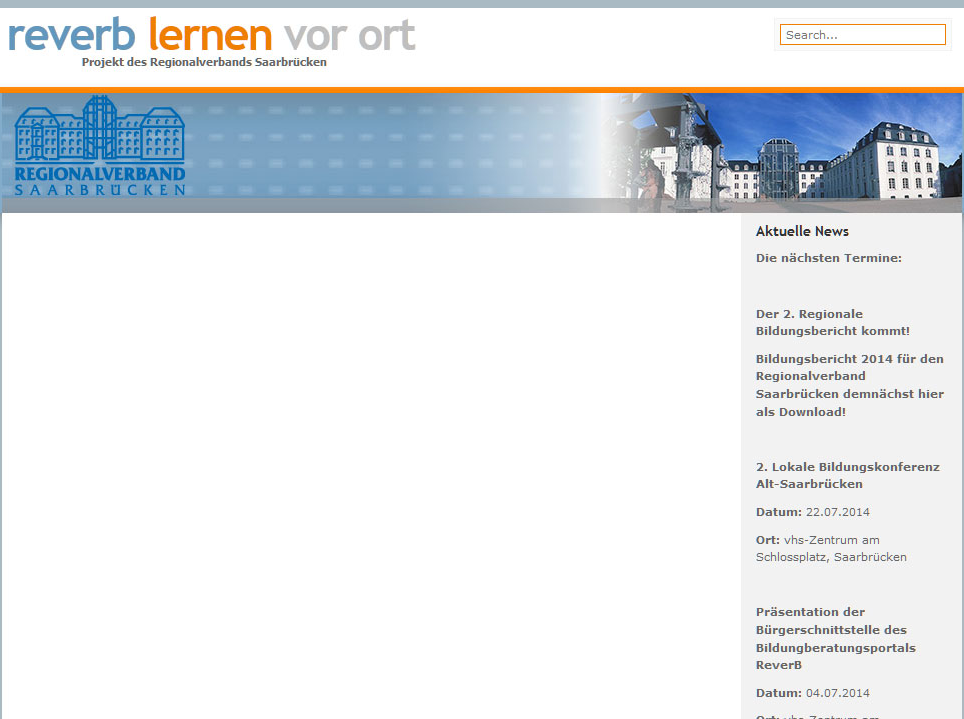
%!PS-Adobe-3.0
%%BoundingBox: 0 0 964 719
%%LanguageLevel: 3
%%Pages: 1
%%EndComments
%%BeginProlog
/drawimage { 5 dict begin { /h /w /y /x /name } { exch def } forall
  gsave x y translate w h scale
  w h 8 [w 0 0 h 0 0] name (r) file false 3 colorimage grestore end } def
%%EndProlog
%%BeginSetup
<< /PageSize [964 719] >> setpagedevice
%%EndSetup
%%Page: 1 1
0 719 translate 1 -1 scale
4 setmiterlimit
0.663 0.729 0.765 setrgbcolor
0 0 964 719 rectfill
(images/1.raw) 0 8 964 711 drawimage
showpage
%%EOF
